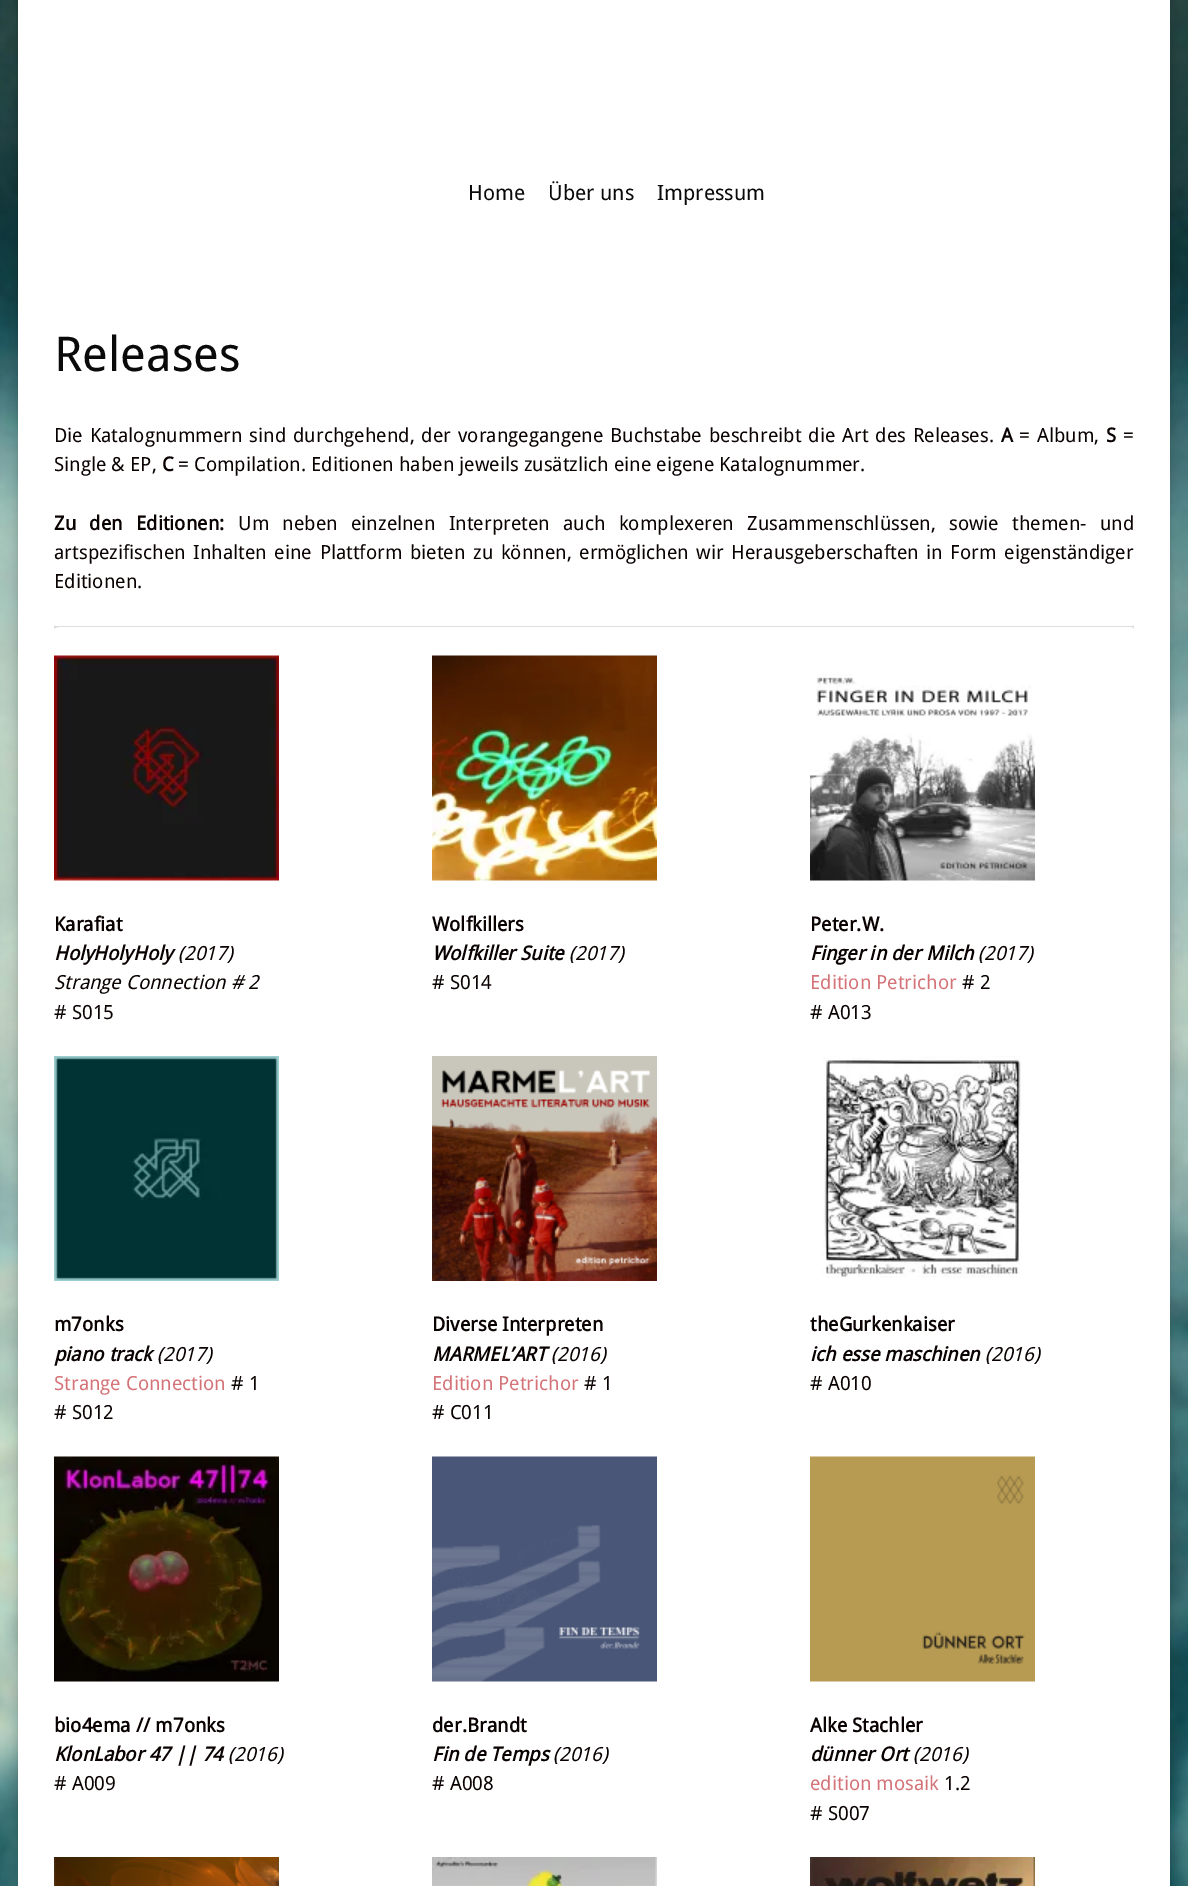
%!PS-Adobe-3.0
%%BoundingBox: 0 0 1188 1886
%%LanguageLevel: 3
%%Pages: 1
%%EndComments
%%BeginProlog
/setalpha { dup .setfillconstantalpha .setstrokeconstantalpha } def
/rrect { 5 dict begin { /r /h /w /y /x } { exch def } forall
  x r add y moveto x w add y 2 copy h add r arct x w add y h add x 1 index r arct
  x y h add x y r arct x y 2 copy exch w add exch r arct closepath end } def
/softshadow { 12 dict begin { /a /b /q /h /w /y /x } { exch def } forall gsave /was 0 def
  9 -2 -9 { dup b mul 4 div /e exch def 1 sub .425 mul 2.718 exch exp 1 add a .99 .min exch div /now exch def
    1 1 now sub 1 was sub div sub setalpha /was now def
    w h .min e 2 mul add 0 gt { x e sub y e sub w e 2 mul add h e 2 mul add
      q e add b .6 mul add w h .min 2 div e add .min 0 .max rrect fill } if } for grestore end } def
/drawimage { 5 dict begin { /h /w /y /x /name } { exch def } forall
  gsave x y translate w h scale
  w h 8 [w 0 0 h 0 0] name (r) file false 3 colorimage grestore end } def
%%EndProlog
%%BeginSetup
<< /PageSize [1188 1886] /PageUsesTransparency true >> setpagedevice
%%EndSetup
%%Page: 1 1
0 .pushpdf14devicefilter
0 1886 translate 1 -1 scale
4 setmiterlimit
1 setgray
0 0 1188 1886 rectfill
(images/1.raw) 0 0 1188 1886 drawimage
0 setgray
18 0 1152 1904 0 6 0.2 softshadow
1 setgray
18 0 1152 1886 rectfill
0.867 setgray
54 626 1080 2 rectfill
newpath 1134 625.5 moveto 1134 628.5 lineto 1129.5 627 lineto closepath fill
1 setgray
newpath 1134 628 moveto 54 628 lineto 58 627 lineto 1130 627 lineto closepath fill
0.867 setgray
newpath 54 628.5 moveto 54 625.5 lineto 58.5 627 lineto closepath fill
(images/2.raw) 54 655 225 226 drawimage
(images/3.raw) 432 655 225 226 drawimage
(images/4.raw) 810 674 225 207 drawimage
(images/5.raw) 54 1056 225 225 drawimage
(images/6.raw) 432 1056 225 225 drawimage
(images/7.raw) 822 1056 199 222 drawimage
(images/8.raw) 54 1456 225 226 drawimage
(images/9.raw) 432 1456 225 226 drawimage
(images/10.raw) 810 1456 225 226 drawimage
(images/11.raw) 54 1857 225 29 drawimage
(images/12.raw) 432 1857 225 29 drawimage
(images/13.raw) 810 1857 225 29 drawimage
/DroidSans-Regular [21 0 0 -21 0 0] selectfont
0.039 setgray
468 200 moveto (Home) show
548 200 moveto (Über uns) show
657 200 moveto (Impressum) show
/DroidSans-Regular [48 0 0 -48 0 0] selectfont
54 371 moveto (Releases) show
/DroidSans-Regular [19.5 0 0 -19.5 0 0] selectfont
0.039 0.004 0.004 setrgbcolor
54 442 moveto 1.9 0 32 (Die Katalognummern sind durchgehend, der vorangegangene Buchstabe beschreibt die Art des Releases.) widthshow
/DroidSans-Bold [19.5 0 0 -19.5 0 0] selectfont
1001 442 moveto (A) show
/DroidSans-Regular [19.5 0 0 -19.5 0 0] selectfont
1019 442 moveto 1.9 0 32 (= Album,) widthshow
/DroidSans-Bold [19.5 0 0 -19.5 0 0] selectfont
1106 442 moveto (S) show
/DroidSans-Regular [19.5 0 0 -19.5 0 0] selectfont
1123 442 moveto (=) show
54 471 moveto (Single & EP,) show
/DroidSans-Bold [19.5 0 0 -19.5 0 0] selectfont
162 471 moveto (C) show
/DroidSans-Regular [19.5 0 0 -19.5 0 0] selectfont
178 471 moveto (= Compilation. Editionen haben jeweils zusätzlich eine eigene Katalognummer.) show
/DroidSans-Bold [19.5 0 0 -19.5 0 0] selectfont
54 530 moveto 8.25 0 32 (Zu den Editionen:) widthshow
/DroidSans-Regular [19.5 0 0 -19.5 0 0] selectfont
238 530 moveto 8.25 0 32 (Um neben einzelnen Interpreten auch komplexeren Zusammenschlüssen, sowie themen- und) widthshow
54 559 moveto 2.6 0 32 (artspezifischen Inhalten eine Plattform bieten zu können, ermöglichen wir Herausgeberschaften in Form eigenständiger) widthshow
54 588 moveto (Editionen.) show
/DroidSans-Bold [19.5 0 0 -19.5 0 0] selectfont
54 931 moveto (Karafiat) show
/DroidSans-BoldItalic [19.5 0 0 -19.5 0 0] selectfont
54 960 moveto (HolyHolyHoly) show
/DroidSans-Italic [19.5 0 0 -19.5 0 0] selectfont
178 960 moveto (\(2017\)) show
54 989 moveto (Strange Connection # 2) show
/DroidSans-Regular [19.5 0 0 -19.5 0 0] selectfont
54 1019 moveto (# S015) show
/DroidSans-Bold [19.5 0 0 -19.5 0 0] selectfont
432 931 moveto (Wolfkillers) show
/DroidSans-BoldItalic [19.5 0 0 -19.5 0 0] selectfont
432 960 moveto (Wolfkiller Suite) show
/DroidSans-Italic [19.5 0 0 -19.5 0 0] selectfont
569 960 moveto (\(2017\)) show
/DroidSans-Regular [19.5 0 0 -19.5 0 0] selectfont
432 989 moveto (# S014) show
/DroidSans-Bold [19.5 0 0 -19.5 0 0] selectfont
810 931 moveto (Peter.W.) show
/DroidSans-BoldItalic [19.5 0 0 -19.5 0 0] selectfont
810 960 moveto (Finger in der Milch) show
/DroidSans-Italic [19.5 0 0 -19.5 0 0] selectfont
978 960 moveto (\(2017\)) show
/DroidSans-Regular [19.5 0 0 -19.5 0 0] selectfont
0.831 0.455 0.475 setrgbcolor
810 989 moveto (Edition Petrichor) show
0.039 0.004 0.004 setrgbcolor
962 989 moveto (# 2) show
810 1019 moveto (# A013) show
/DroidSans-Bold [19.5 0 0 -19.5 0 0] selectfont
54 1331 moveto (m7onks) show
/DroidSans-BoldItalic [19.5 0 0 -19.5 0 0] selectfont
54 1361 moveto (piano track) show
/DroidSans-Italic [19.5 0 0 -19.5 0 0] selectfont
157 1361 moveto (\(2017\)) show
/DroidSans-Regular [19.5 0 0 -19.5 0 0] selectfont
0.831 0.455 0.475 setrgbcolor
54 1390 moveto (Strange Connection) show
0.039 0.004 0.004 setrgbcolor
231 1390 moveto (# 1) show
54 1419 moveto (# S012) show
/DroidSans-Bold [19.5 0 0 -19.5 0 0] selectfont
432 1331 moveto (Diverse Interpreten) show
/DroidSans-BoldItalic [19.5 0 0 -19.5 0 0] selectfont
432 1361 moveto (MARMEL’ART) show
/DroidSans-Italic [19.5 0 0 -19.5 0 0] selectfont
551 1361 moveto (\(2016\)) show
/DroidSans-Regular [19.5 0 0 -19.5 0 0] selectfont
0.831 0.455 0.475 setrgbcolor
432 1390 moveto (Edition Petrichor) show
0.039 0.004 0.004 setrgbcolor
584 1390 moveto (# 1) show
432 1419 moveto (# C011) show
/DroidSans-Bold [19.5 0 0 -19.5 0 0] selectfont
810 1331 moveto (theGurkenkaiser) show
/DroidSans-BoldItalic [19.5 0 0 -19.5 0 0] selectfont
810 1361 moveto (ich esse maschinen) show
/DroidSans-Italic [19.5 0 0 -19.5 0 0] selectfont
985 1361 moveto (\(2016\)) show
/DroidSans-Regular [19.5 0 0 -19.5 0 0] selectfont
810 1390 moveto (# A010) show
/DroidSans-Bold [19.5 0 0 -19.5 0 0] selectfont
54 1732 moveto (bio4ema // m7onks) show
/DroidSans-BoldItalic [19.5 0 0 -19.5 0 0] selectfont
54 1761 moveto (KlonLabor 47 || 74) show
/DroidSans-Italic [19.5 0 0 -19.5 0 0] selectfont
228 1761 moveto (\(2016\)) show
/DroidSans-Regular [19.5 0 0 -19.5 0 0] selectfont
54 1790 moveto (# A009) show
/DroidSans-Bold [19.5 0 0 -19.5 0 0] selectfont
432 1732 moveto (der.Brandt) show
/DroidSans-BoldItalic [19.5 0 0 -19.5 0 0] selectfont
432 1761 moveto (Fin de Temps) show
/DroidSans-Italic [19.5 0 0 -19.5 0 0] selectfont
553 1761 moveto (\(2016\)) show
/DroidSans-Regular [19.5 0 0 -19.5 0 0] selectfont
432 1790 moveto (# A008) show
/DroidSans-Bold [19.5 0 0 -19.5 0 0] selectfont
810 1732 moveto (Alke Stachler) show
/DroidSans-BoldItalic [19.5 0 0 -19.5 0 0] selectfont
810 1761 moveto (dünner Ort) show
/DroidSans-Italic [19.5 0 0 -19.5 0 0] selectfont
913 1761 moveto (\(2016\)) show
/DroidSans-Regular [19.5 0 0 -19.5 0 0] selectfont
0.831 0.455 0.475 setrgbcolor
810 1790 moveto (edition mosaik) show
0.039 0.004 0.004 setrgbcolor
944 1790 moveto (1.2) show
810 1820 moveto (# S007) show
.poppdf14devicefilter showpage
%%EOF
